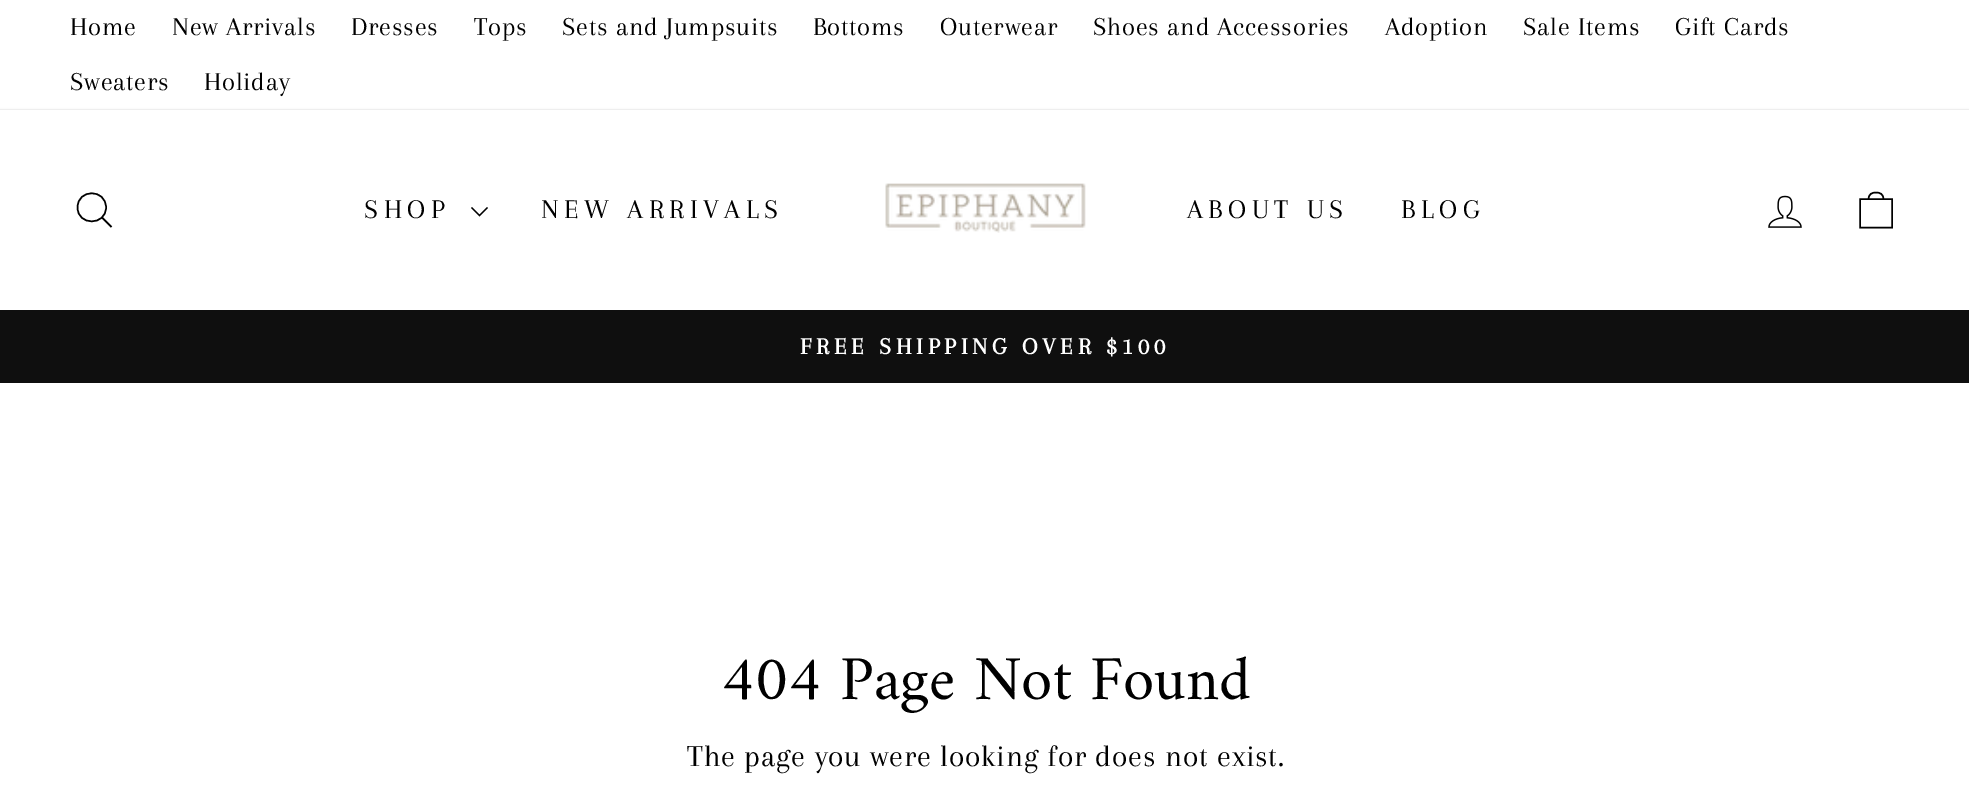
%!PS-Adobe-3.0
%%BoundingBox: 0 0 1969 789
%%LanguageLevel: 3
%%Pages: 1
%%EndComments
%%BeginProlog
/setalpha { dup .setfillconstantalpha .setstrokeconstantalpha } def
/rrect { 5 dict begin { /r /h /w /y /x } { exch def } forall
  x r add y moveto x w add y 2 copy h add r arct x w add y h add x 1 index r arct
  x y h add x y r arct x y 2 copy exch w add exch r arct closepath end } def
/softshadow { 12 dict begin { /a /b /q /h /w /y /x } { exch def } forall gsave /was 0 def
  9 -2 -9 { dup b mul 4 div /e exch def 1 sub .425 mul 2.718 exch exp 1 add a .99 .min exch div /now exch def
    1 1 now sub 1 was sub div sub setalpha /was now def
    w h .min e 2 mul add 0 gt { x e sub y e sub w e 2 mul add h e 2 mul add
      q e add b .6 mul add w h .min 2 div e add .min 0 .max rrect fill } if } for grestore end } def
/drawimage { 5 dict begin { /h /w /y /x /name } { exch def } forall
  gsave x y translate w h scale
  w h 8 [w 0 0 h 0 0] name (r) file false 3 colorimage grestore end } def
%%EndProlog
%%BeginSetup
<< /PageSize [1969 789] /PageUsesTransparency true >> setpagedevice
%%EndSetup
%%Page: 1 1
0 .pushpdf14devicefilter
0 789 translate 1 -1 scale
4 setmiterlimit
1 setgray
0 0 1969 789 rectfill
0.059 setgray
0 310 1969 73 rectfill
0 setgray
0 110 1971 200 0 1 0.2 softshadow
1 setgray
0 110 1969 200 rectfill
0 setgray
1.5 setlinewidth
newpath 106 207.5 moveto 106 226 77.5 226 77.5 207.5 curveto 77.5 188.5 106 188.5 106 207.5 curveto closepath 111.5 227 moveto 102 217.5 lineto stroke
1.2 setlinewidth
newpath 471.5 207.5 moveto 479.5 215.5 lineto 487.5 207.5 lineto stroke
(images/1.raw) 885 183 201 50 drawimage
(images/2.raw) 1768 195 34 33 drawimage
1.5 setlinewidth
newpath 1860 199 moveto 1892 199 lineto 1892 227.5 lineto 1860 227.5 lineto closepath 1868.5 199.5 moveto 1868.5 194 1872 192.5 1876 192.5 curveto 1880 192.5 1883.5 194 1883.5 199.5 curveto stroke
/Arapey-Regular [26.75 0 0 -26.75 0 0] selectfont
70 35 moveto 0.8 0 (Home) ashow
172 35 moveto 0.8 0 (New Arrivals) ashow
351 35 moveto 0.8 0 (Dresses) ashow
474 35 moveto 0.8 0 (Tops) ashow
562 35 moveto 0.8 0 (Sets and Jumpsuits) ashow
813 35 moveto 0.8 0 (Bottoms) ashow
940 35 moveto 0.8 0 (Outerwear) ashow
1093 35 moveto 0.8 0 (Shoes and Accessories) ashow
1385 35 moveto 0.8 0 (Adoption) ashow
1523 35 moveto 0.8 0 (Sale Items) ashow
1675 35 moveto 0.8 0 (Gift Cards) ashow
70 90 moveto 0.8 0 (Sweaters) ashow
204 90 moveto 0.8 0 (Holiday) ashow
/Arapey-Regular [28 0 0 -28 0 0] selectfont
364 218 moveto 5.6 0 (SHOP) ashow
541 218 moveto 5.6 0 (NEW ARRIVALS) ashow
1187 218 moveto 5.6 0 (ABOUT US) ashow
1401 218 moveto 5.6 0 (BLOG) ashow
/Arapey-Bold [24.1 0 0 -24.1 0 0] selectfont
1 setgray
800 354 moveto 4.8 0 (FREE SHIPPING OVER $100) ashow
/Amiri-Regular [63 0 0 -63 0 0] selectfont
0 setgray
721 699 moveto (404 Page Not Found) show
/Arapey-Regular [31.5 0 0 -31.5 0 0] selectfont
687 766 moveto 0.8 0 (The page you were looking for does not exist.) ashow
.poppdf14devicefilter showpage
%%EOF
